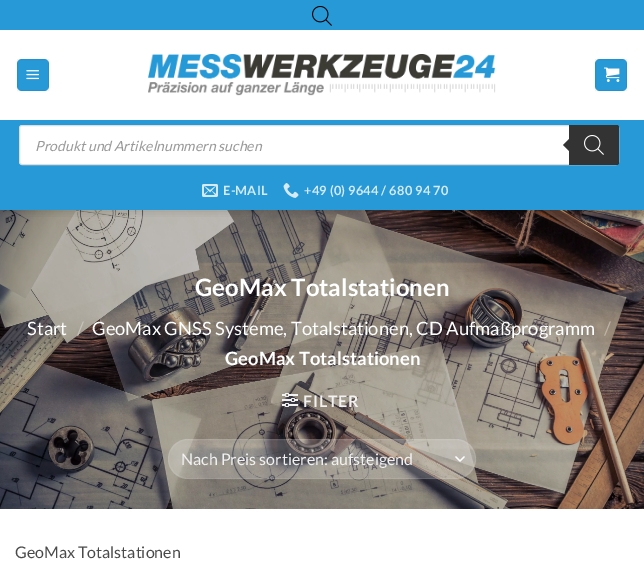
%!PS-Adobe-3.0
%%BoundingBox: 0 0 644 574
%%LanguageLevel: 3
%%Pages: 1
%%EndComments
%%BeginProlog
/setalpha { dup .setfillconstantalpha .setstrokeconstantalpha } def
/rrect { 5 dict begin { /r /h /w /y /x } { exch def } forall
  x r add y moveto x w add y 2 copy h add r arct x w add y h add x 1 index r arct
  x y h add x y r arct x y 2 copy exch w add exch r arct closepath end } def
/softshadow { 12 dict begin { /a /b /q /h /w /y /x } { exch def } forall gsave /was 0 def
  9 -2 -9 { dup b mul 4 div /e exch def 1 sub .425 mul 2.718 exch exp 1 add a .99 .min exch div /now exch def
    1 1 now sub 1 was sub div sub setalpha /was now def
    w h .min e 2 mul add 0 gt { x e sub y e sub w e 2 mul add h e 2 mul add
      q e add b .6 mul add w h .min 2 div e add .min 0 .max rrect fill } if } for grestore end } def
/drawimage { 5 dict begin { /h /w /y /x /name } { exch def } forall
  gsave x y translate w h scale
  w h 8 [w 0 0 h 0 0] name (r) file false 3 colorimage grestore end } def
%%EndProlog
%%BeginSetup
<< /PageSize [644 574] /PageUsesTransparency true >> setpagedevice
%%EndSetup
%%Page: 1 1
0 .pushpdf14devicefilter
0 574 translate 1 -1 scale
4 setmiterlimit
1 setgray
0 0 644 574 rectfill
(images/8.raw) 0 210 644 299 drawimage
gsave
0 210 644 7 rectclip
0 setgray
1 1 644 210 0 5 0.15 softshadow
grestore
0.157 0.6 0.843 setrgbcolor
0 0 644 30 rectfill
(images/1.raw) 312 6 20 20 drawimage
0.153 0.6 0.839 setrgbcolor
17 59 32 32 5 rrect fill
0.05 setalpha
0 setgray
17.5 59.5 31 31 rectstroke
1 setalpha
(images/2.raw) 26 70 13 10 drawimage
(images/3.raw) 148 54 348 42 drawimage
0.153 0.6 0.839 setrgbcolor
595 59 32 32 5 rrect fill
0.05 setalpha
0 setgray
595.5 59.5 31 31 rectstroke
1 setalpha
(images/4.raw) 604 67 16 15 drawimage
0.157 0.6 0.843 setrgbcolor
0 120 644 90 rectfill
1 setgray
19.5 125.5 599 39 2.5 rrect gsave fill grestore
0.867 setgray
stroke
0.2 setgray
newpath 569 125 moveto 617 125 lineto 618 125 619 126 619 127 curveto 619 163 lineto 619 164 618 165 617 165 curveto 569 165 lineto closepath fill
newpath 571 137 moveto 571 153 lineto 563 145 lineto closepath fill
(images/5.raw) 584 135 20 20 drawimage
(images/6.raw) 202 184 16 13 drawimage
(images/7.raw) 283 183 16 15 drawimage
(images/9.raw) 282 393 16 14 drawimage
0.2 setalpha
1 setgray
168 439 308 40 20 rrect fill
1 setalpha
1.3 setlinewidth
1 setlinecap
1 setlinejoin
newpath 456 457 moveto 460 461 lineto 464 457 lineto stroke
0.09 setalpha
1 setlinewidth
0 setlinecap
0 setlinejoin
168.5 439.5 307 39 19.5 rrect stroke
/Lato-Italic [14 0 0 -14 0 0] selectfont
1 setalpha
0.6 setgray
35 151 moveto (Produkt und Artikelnummern suchen) show
/Lato-Bold [12.75 0 0 -12.75 0 0] selectfont
0.831 0.922 0.969 setrgbcolor
223 195 moveto 0.25 0 (E-MAIL) ashow
304 195 moveto 0.25 0 (+49 \(0\) 9644 / 680 94 70) ashow
/Lato-Bold [24 0 0 -24 0 0] selectfont
1 setgray
195 296 moveto (GeoMax Totalstationen) show
/Lato-Regular [18.4 0 0 -18.4 0 0] selectfont
27 335 moveto (Start) show
0.776 0.761 0.733 setrgbcolor
77 335 moveto (/) show
1 setgray
92 335 moveto (GeoMax GNSS Systeme, Totalstationen, CD Aufmaßprogramm) show
0.737 0.702 0.659 setrgbcolor
604 335 moveto (/) show
/Lato-Bold [18.4 0 0 -18.4 0 0] selectfont
1 setgray
225 365 moveto (GeoMax Totalstationen) show
/Lato-Bold [16 0 0 -16 0 0] selectfont
0.945 setgray
303 407 moveto 0.75 0 (FILTER) ashow
/Lato-Regular [16 0 0 -16 0 0] selectfont
181 465 moveto (Nach Preis sortieren: aufsteigend) show
0.29 setgray
15 558 moveto (GeoMax Totalstationen) show
.poppdf14devicefilter showpage
%%EOF
